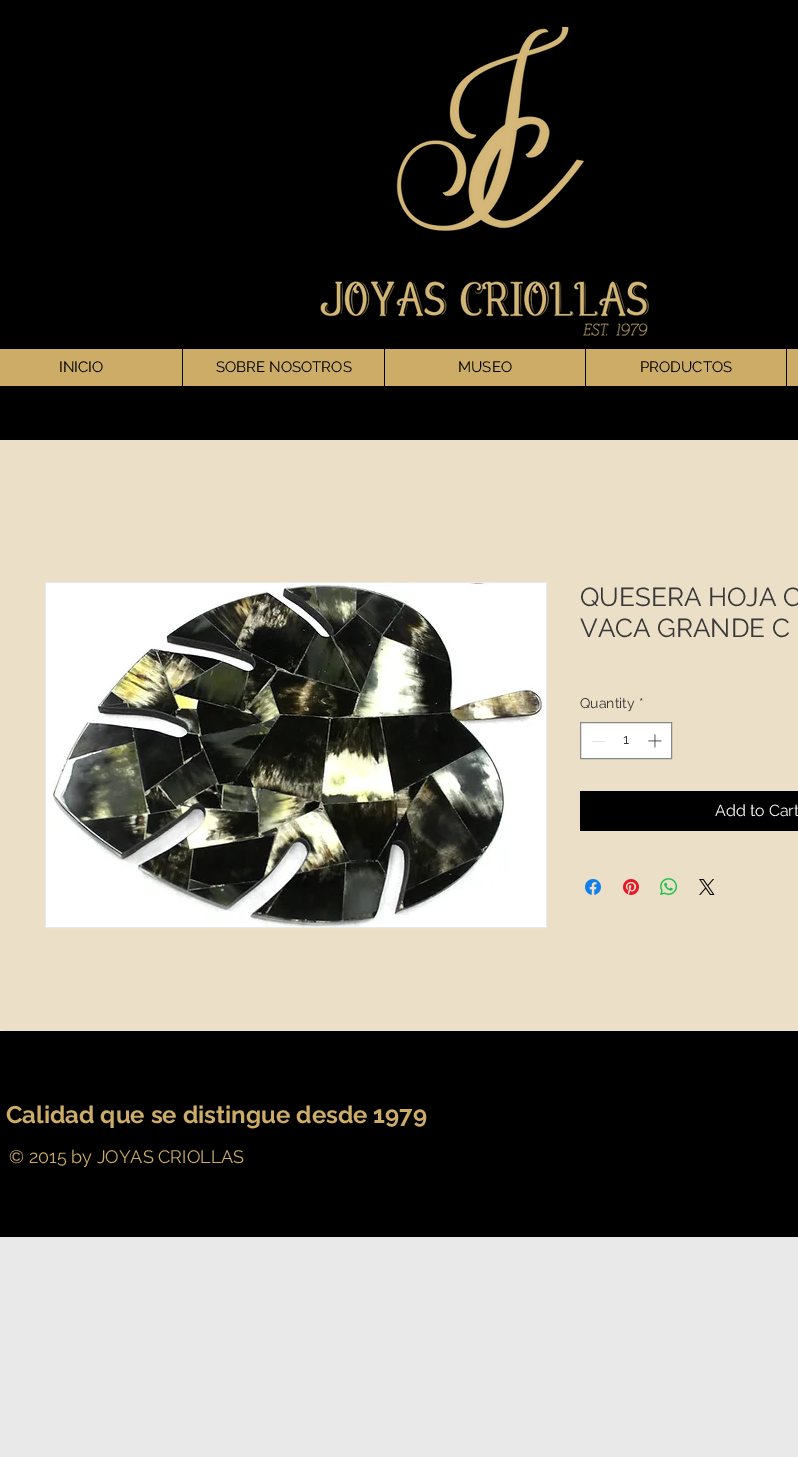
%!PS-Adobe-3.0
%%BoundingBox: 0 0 798 1457
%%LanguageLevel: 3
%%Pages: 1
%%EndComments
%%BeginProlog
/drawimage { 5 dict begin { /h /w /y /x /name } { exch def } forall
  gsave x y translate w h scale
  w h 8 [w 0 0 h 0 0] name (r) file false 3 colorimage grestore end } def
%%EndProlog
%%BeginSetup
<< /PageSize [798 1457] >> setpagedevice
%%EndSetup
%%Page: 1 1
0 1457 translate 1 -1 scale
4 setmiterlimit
0.914 setgray
0 0 798 1457 rectfill
0 setgray
0 0 798 440 rectfill
(images/1.raw) 320 27 329 309 drawimage
0.8 0.675 0.404 setrgbcolor
0 349 798 37 rectfill
0 setgray
182 349 1 37 rectfill
384 349 1 37 rectfill
585 349 1 37 rectfill
786 349 1 37 rectfill
0.922 0.875 0.784 setrgbcolor
newpath 0 440 moveto 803 440 lineto 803 1026 lineto 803 1029 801 1031 798 1031 curveto 5 1031 lineto 2 1031 0 1029 0 1026 curveto closepath fill
0.914 setgray
45.5 582.5 501 345 rectstroke
(images/2.raw) 46 583 500 344 drawimage
1 setgray
newpath 580.5 722.5 moveto 671.5 722.5 lineto 671.5 758.5 lineto 580.5 758.5 lineto closepath gsave fill grestore
0.533 setgray
stroke
0.89 setgray
592 741 13 1 rectfill
(images/3.raw) 648 734 14 14 drawimage
0 setgray
580 791 218 40 rectfill
(images/4.raw) 585 879 16 16 drawimage
(images/5.raw) 623 879 16 16 drawimage
(images/6.raw) 660 878 17 17 drawimage
(images/7.raw) 699 879 16 16 drawimage
0 1031 798 206 rectfill
/Raleway-Regular [15 0 0 -15 0 0] selectfont
59 372 moveto (INICIO) show
216 372 moveto (SOBRE NOSOTROS) show
458 372 moveto (MUSEO) show
640 372 moveto (PRODUCTOS) show
/Raleway-Regular [26 0 0 -26 0 0] selectfont
0.22 setgray
580 606 moveto (QUESERA HOJA C) show
580 637 moveto (VACA GRANDE C) show
/Raleway-Regular [14 0 0 -14 0 0] selectfont
580 708 moveto (Quantity) show
639 708 moveto (*) show
623 744 moveto (1) show
/Raleway-Regular [16 0 0 -16 0 0] selectfont
1 setgray
715 816 moveto (Add to Cart) show
/Raleway-Bold [24 0 0 -24 0 0] selectfont
0.8 0.675 0.404 setrgbcolor
6 1123 moveto (Calidad que se distingue desde 1979) show
/Raleway-Regular [18 0 0 -18 0 0] selectfont
9 1163 moveto (© 2015 by JOYAS CRIOLLAS) show
showpage
%%EOF
